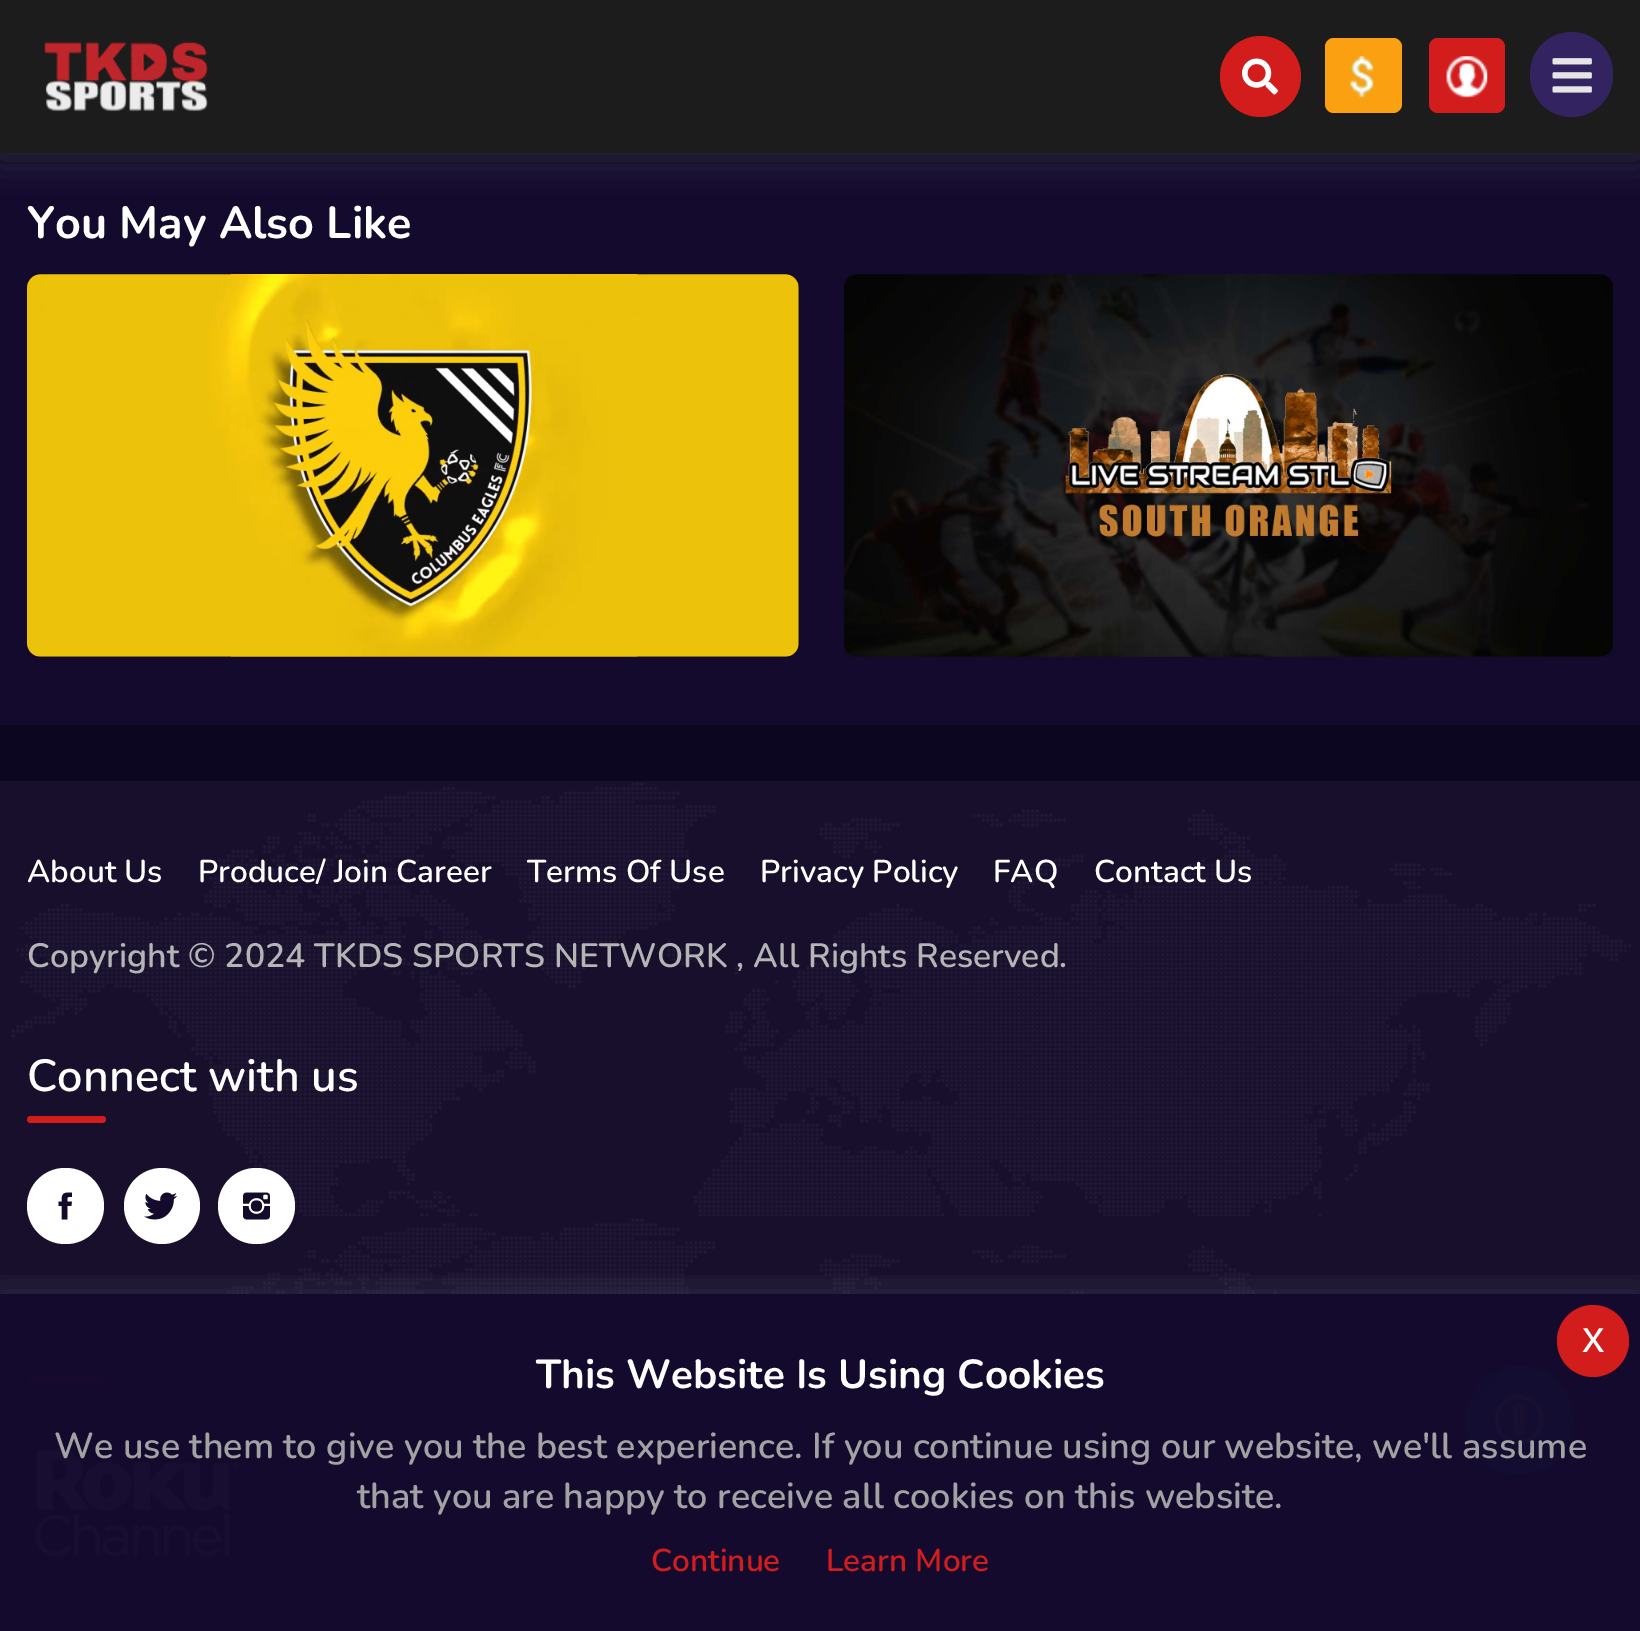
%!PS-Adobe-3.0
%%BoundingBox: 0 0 1640 1631
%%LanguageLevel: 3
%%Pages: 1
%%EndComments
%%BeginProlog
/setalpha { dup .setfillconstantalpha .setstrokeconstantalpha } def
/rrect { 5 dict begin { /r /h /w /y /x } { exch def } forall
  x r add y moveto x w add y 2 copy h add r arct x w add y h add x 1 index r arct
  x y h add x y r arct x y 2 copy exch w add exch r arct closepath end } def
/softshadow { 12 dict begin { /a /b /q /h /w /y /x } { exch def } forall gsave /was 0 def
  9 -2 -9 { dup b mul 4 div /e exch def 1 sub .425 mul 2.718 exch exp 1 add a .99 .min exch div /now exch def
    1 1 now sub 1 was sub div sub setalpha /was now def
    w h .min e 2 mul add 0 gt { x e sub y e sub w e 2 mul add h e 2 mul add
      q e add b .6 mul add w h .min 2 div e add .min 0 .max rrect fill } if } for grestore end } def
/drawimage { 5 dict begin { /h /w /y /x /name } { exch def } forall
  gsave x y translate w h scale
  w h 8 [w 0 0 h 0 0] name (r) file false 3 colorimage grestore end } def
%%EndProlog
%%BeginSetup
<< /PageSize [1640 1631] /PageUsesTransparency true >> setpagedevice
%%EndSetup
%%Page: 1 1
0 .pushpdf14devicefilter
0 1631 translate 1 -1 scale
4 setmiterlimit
0.051 0.024 0.125 setrgbcolor
0 0 1640 1631 rectfill
0.075 0.039 0.176 setrgbcolor
0 164 1640 561 rectfill
1 setgray
0 5 1640 153 0 17 0.15 softshadow
0.11 setgray
0 0 1640 153 rectfill
(images/1.raw) 44 41 164 71 drawimage
0.827 0.11 0.11 setrgbcolor
newpath 1260.5 76.5 40.5 0 360 arc closepath fill
(images/2.raw) 1242 58 36 37 drawimage
0.984 0.627 0.063 setrgbcolor
1325 38 77 75 9 rrect fill
(images/3.raw) 1350 56 24 42 drawimage
0.827 0.11 0.11 setrgbcolor
1429 38 76 75 9 rrect fill
(images/4.raw) 1446 56 42 42 drawimage
0.2 0.137 0.376 setrgbcolor
1530 32 83 85 41.5 rrect fill
(images/5.raw) 1552 58 40 35 drawimage
(images/6.raw) 27 274 772 383 drawimage
(images/7.raw) 844 274 769 383 drawimage
0.09 0.059 0.173 setrgbcolor
0 781 1640 850 rectfill
(images/8.raw) 10 782 1621 849 drawimage
0.827 0.11 0.11 setrgbcolor
27 1116 79 7 3.5 rrect fill
1 setgray
27 1168 77 76 38 rrect fill
(images/9.raw) 58 1192 14 28 drawimage
newpath 162 1206 38 0 360 arc closepath fill
(images/10.raw) 144 1192 33 28 drawimage
218 1168 77 76 38 rrect fill
(images/11.raw) 243 1192 27 28 drawimage
0.827 0.11 0.11 setrgbcolor
27 1377 79 7 3.5 rrect fill
(images/12.raw) 35 1450 205 107 drawimage
0 0.482 1 setrgbcolor
1465 1375 108 108 54 13.5 0.3 softshadow
gsave newpath 1519 1420 54 0 360 arc closepath clip newpath
<< /ShadingType 2 /ColorSpace /DeviceRGB /Coords [1465 1366 1573 1474] /Extend [true true] /Function << /FunctionType 2 /Domain [0 1] /C0 [0 0.482 1] /C1 [0 0.776 1] /N 1 >> >> shfill grestore
1 setgray
4.5 setlinewidth
1 setlinecap
1 setlinejoin
newpath 1519 1397 moveto 1489 1397 1489 1442 1519 1442 curveto 1548.5 1442 1548.5 1397 1519 1397 curveto closepath 1519 1434.5 moveto 1514.5 1434.5 1514.5 1427.5 1519 1427.5 curveto 1523 1427.5 1523 1434.5 1519 1434.5 curveto closepath 1522 1422 moveto 1522 1425.5 1517 1426.5 1515.5 1423.5 curveto 1515.5 1417.5 lineto 1515.5 1414.5 1514 1407.5 1517 1405.5 curveto 1524.5 1400.5 1522 1420 1522 1422 curveto closepath stroke
gsave
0 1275 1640 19 rectclip
0 1294 1640 337 0 20 0.12 softshadow
grestore
0.98 setalpha
0.075 0.039 0.176 setrgbcolor
0 1294 1640 337 rectfill
1 setalpha
0.827 0.11 0.11 setrgbcolor
newpath 1593 1341 36 0 360 arc closepath fill
/Nunito-Bold [45 0 0 -45 0 0] selectfont
1 setgray
27 238 moveto (You May Also Like) show
/Nunito-SemiBold [31.5 0 0 -31.5 0 0] selectfont
27 882 moveto (About Us) show
198 882 moveto (Produce/ Join Career) show
527 882 moveto (Terms Of Use) show
760 882 moveto (Privacy Policy) show
993 882 moveto (FAQ) show
1094 882 moveto (Contact Us) show
/Nunito-SemiBold [33.75 0 0 -33.75 0 0] selectfont
0.71 setgray
27 967 moveto (Copyright © 2024 TKDS SPORTS NETWORK , All Rights Reserved.) show
/Nunito-SemiBold [45 0 0 -45 0 0] selectfont
1 setgray
27 1091 moveto (Connect with us) show
/LiberationSans-Regular [45 0 0 -45 0 0] selectfont
1582 1352 moveto (x) show
/Nunito-Bold [40.5 0 0 -40.5 0 0] selectfont
536 1388 moveto (This Website Is Using Cookies) show
/Nunito-SemiBold [36 0 0 -36 0 0] selectfont
0.635 setgray
54 1458 moveto (We use them to give you the best experience. If you continue using our website, we'll assume) show
357 1508 moveto (that you are happy to receive all cookies on this website.) show
/Nunito-SemiBold [31.5 0 0 -31.5 0 0] selectfont
0.827 0.11 0.11 setrgbcolor
651 1571 moveto (Continue) show
826 1571 moveto (Learn More) show
.poppdf14devicefilter showpage
%%EOF
